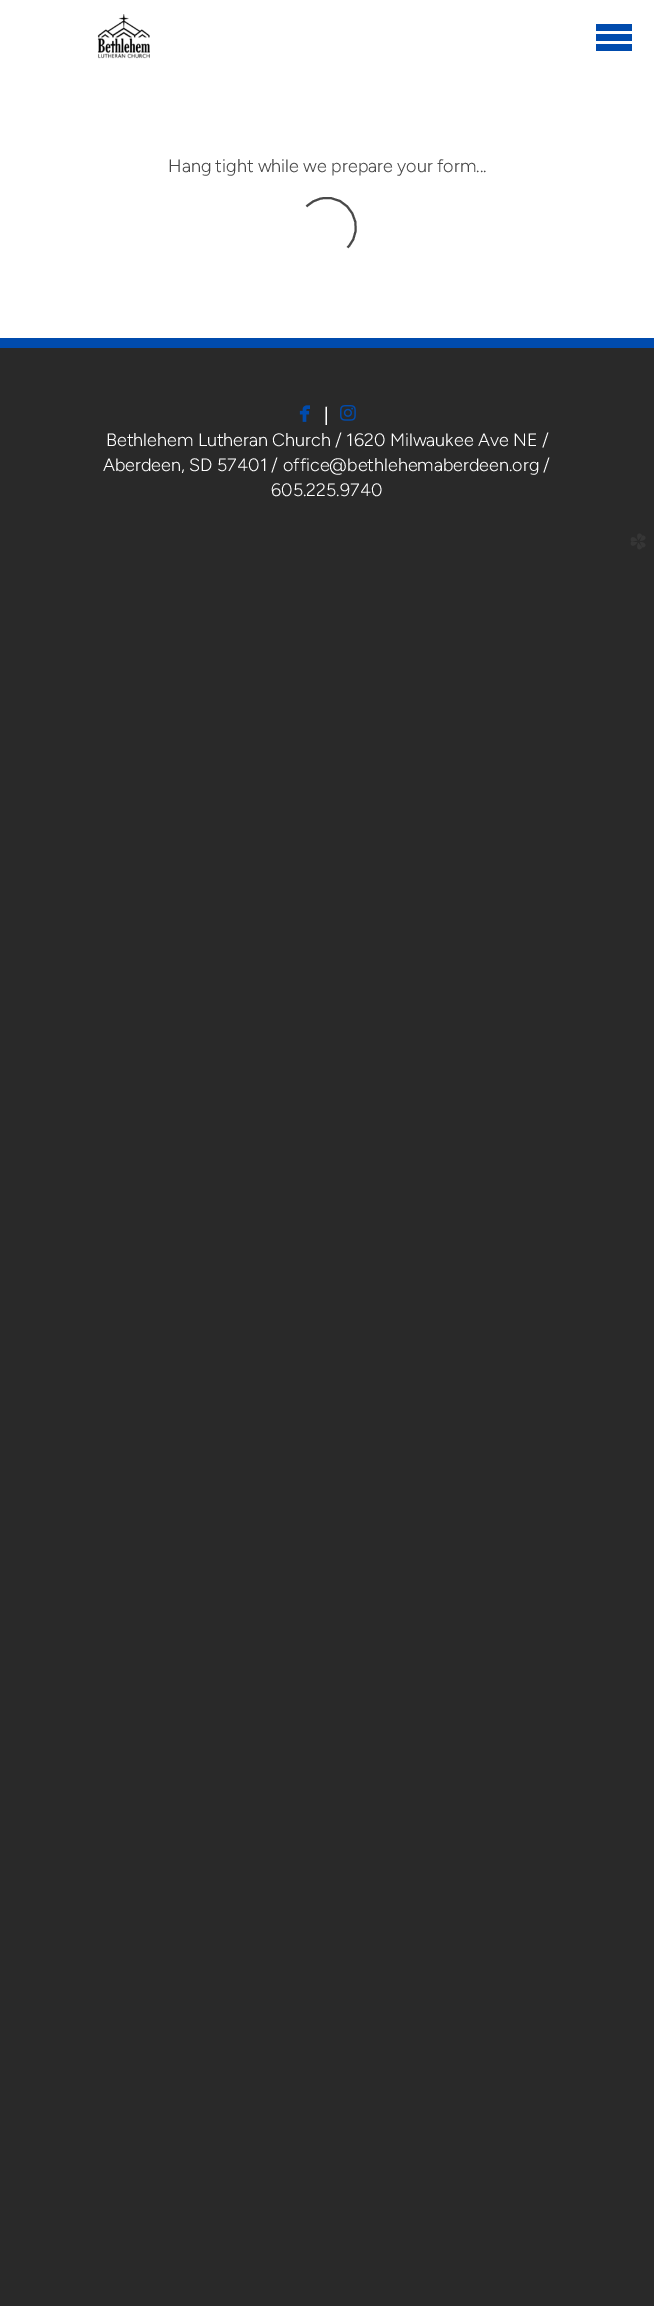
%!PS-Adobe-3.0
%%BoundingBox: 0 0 654 2306
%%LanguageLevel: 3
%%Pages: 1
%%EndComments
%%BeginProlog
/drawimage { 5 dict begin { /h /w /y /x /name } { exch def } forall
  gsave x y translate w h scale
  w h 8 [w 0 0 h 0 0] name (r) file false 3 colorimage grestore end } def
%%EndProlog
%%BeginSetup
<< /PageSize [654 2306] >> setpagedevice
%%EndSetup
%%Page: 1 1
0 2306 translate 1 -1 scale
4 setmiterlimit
0.161 setgray
0 0 654 2306 rectfill
1 setgray
0 0 654 338 rectfill
(images/1.raw) 97 14 53 45 drawimage
0 0.294 0.678 setrgbcolor
596 24 36 7 rectfill
596 34 36 7 rectfill
596 44 36 7 rectfill
0.286 setgray
2 setlinewidth
newpath 306.5 206.5 moveto 310.5 202.5 315.5 199.5 321.5 198.5 curveto 349 193 367.5 227.5 347.5 247.5 curveto stroke
0 0.294 0.678 setrgbcolor
0 338 654 10 rectfill
(images/2.raw) 299 405 11 17 drawimage
(images/3.raw) 340 405 16 16 drawimage
(images/4.raw) 630 533 16 17 drawimage
/Figtree-Light [18 0 0 -18 0 0] selectfont
0.286 setgray
168 172 moveto (Hang tight while we prepare your form...) show
/Figtree-SemiBold [18 0 0 -18 0 0] selectfont
1 setgray
324 421 moveto (|) show
/Figtree-Light [18 0 0 -18 0 0] selectfont
106 446 moveto (Bethlehem Lutheran Church / 1620 Milwaukee Ave NE /) show
103 471 moveto (Aberdeen, SD 57401 / office@bethlehemaberdeen.org /) show
271 496 moveto (605.225.9740) show
showpage
%%EOF
